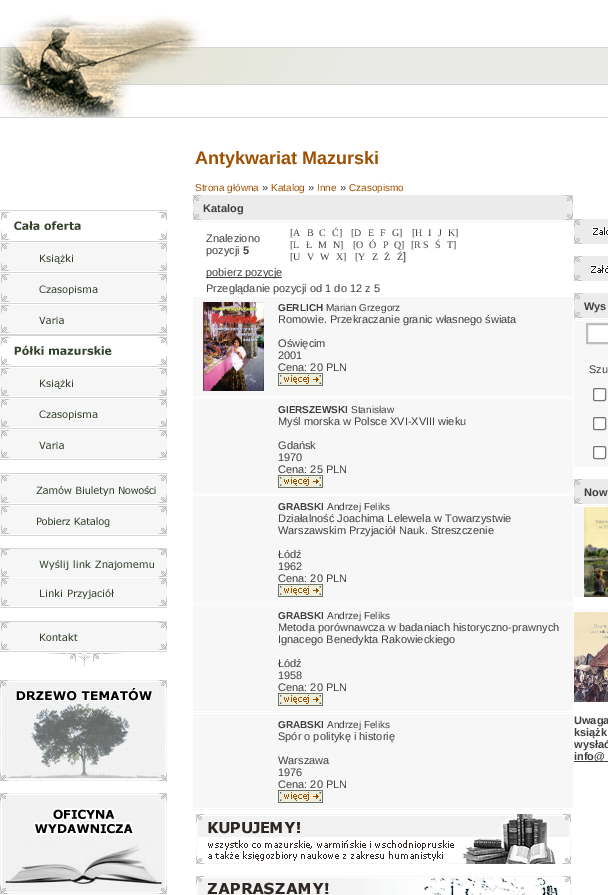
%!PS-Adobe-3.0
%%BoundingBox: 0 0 608 895
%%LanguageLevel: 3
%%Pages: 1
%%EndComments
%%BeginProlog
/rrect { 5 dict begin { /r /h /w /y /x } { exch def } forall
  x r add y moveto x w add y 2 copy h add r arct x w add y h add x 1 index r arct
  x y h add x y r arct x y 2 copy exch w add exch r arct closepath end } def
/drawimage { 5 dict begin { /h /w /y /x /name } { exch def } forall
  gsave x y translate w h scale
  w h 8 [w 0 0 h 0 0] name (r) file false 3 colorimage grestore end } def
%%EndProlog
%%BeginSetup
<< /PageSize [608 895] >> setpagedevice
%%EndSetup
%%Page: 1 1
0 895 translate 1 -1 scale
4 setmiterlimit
1 setgray
0 0 608 895 rectfill
(images/1.raw) 0 15 206 105 drawimage
(images/2.raw) 206 47 155 71 drawimage
(images/3.raw) 361 47 247 71 drawimage
(images/4.raw) 0 210 167 32 drawimage
(images/5.raw) 0 243 167 30 drawimage
(images/6.raw) 0 274 167 30 drawimage
(images/7.raw) 0 305 167 30 drawimage
(images/8.raw) 0 335 167 32 drawimage
(images/5.raw) 0 368 167 30 drawimage
(images/6.raw) 0 399 167 30 drawimage
(images/7.raw) 0 430 167 30 drawimage
(images/9.raw) 0 473 167 32 drawimage
(images/10.raw) 0 506 167 30 drawimage
(images/11.raw) 0 548 167 29 drawimage
(images/12.raw) 0 578 167 30 drawimage
(images/13.raw) 0 621 167 31 drawimage
(images/14.raw) 46 653 77 14 drawimage
(images/15.raw) 0 680 167 101 drawimage
(images/16.raw) 0 793 167 101 drawimage
0.922 setgray
202 195 362 25 rectfill
(images/17.raw) 193 195 9 25 drawimage
(images/18.raw) 564 195 9 25 drawimage
0.969 setgray
193 221 380 1 rectfill
0.247 setgray
206 277 76 1 rectfill
0.969 setgray
193 297 380 99 rectfill
(images/19.raw) 203 302 61 89 drawimage
(images/20.raw) 278 373 45 13 drawimage
193 397 380 1 rectfill
193 399 380 94 rectfill
(images/20.raw) 278 475 45 13 drawimage
193 494 380 1 rectfill
193 496 380 106 rectfill
(images/20.raw) 278 584 45 13 drawimage
193 603 380 1 rectfill
193 605 380 106 rectfill
(images/20.raw) 278 693 45 13 drawimage
193 712 380 1 rectfill
193 714 380 94 rectfill
(images/20.raw) 278 790 45 13 drawimage
193 809 380 1 rectfill
(images/21.raw) 196 814 375 50 drawimage
(images/22.raw) 196 876 375 19 drawimage
0.922 setgray
583 219 25 25 rectfill
(images/17.raw) 574 219 9 25 drawimage
(images/23.raw) 592 226 16 10 drawimage
583 256 25 25 rectfill
(images/17.raw) 574 256 9 25 drawimage
(images/24.raw) 590 264 18 10 drawimage
583 293 25 25 rectfill
(images/17.raw) 574 293 9 25 drawimage
0.969 setgray
574 319 34 1 rectfill
574 321 34 146 rectfill
1 setgray
newpath 587 324 moveto 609 324 lineto 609 343 lineto 587 343 lineto closepath gsave fill grestore
0.741 setgray
2 setlinewidth
stroke
1 setgray
593.5 388.5 12 12 1.5 rrect gsave fill grestore
0.463 setgray
1 setlinewidth
stroke
1 setgray
593.5 417.5 12 12 1.5 rrect gsave fill grestore
0.463 setgray
stroke
1 setgray
593.5 446.5 12 12 1.5 rrect gsave fill grestore
0.463 setgray
stroke
0.922 setgray
583 479 25 25 rectfill
(images/17.raw) 574 479 9 25 drawimage
0.969 setgray
574 505 34 1 rectfill
574 507 10 90 rectfill
(images/25.raw) 584 507 24 90 drawimage
574 610 34 1 rectfill
(images/26.raw) 574 612 34 90 drawimage
0.247 setgray
574 761 34 1 rectfill
/LiberationSans-Bold [18 0 0 -18 0 0] selectfont
0.624 0.31 0 setrgbcolor
195 164 moveto (Antykwariat Mazurski) show
/LiberationSans-Regular [10 0 0 -10 0 0] selectfont
195 191 moveto (Strona główna) show
/LiberationSans-Regular [11 0 0 -11 0 0] selectfont
0.247 setgray
262 191 moveto (») show
/LiberationSans-Regular [10 0 0 -10 0 0] selectfont
0.624 0.31 0 setrgbcolor
271 191 moveto (Katalog) show
/LiberationSans-Regular [11 0 0 -11 0 0] selectfont
0.247 setgray
308 191 moveto (») show
/LiberationSans-Regular [10 0 0 -10 0 0] selectfont
0.624 0.31 0 setrgbcolor
317 191 moveto (Inne) show
/LiberationSans-Regular [11 0 0 -11 0 0] selectfont
0.247 setgray
340 191 moveto (») show
/LiberationSans-Regular [10 0 0 -10 0 0] selectfont
0.624 0.31 0 setrgbcolor
349 191 moveto (Czasopismo) show
/LiberationSans-Bold [11 0 0 -11 0 0] selectfont
0.247 setgray
203 212 moveto (Katalog) show
/LiberationSans-Regular [11 0 0 -11 0 0] selectfont
206 242 moveto (Znaleziono) show
206 254 moveto (pozycji) show
/LiberationSans-Bold [11 0 0 -11 0 0] selectfont
243 254 moveto (5) show
/LiberationSerif-Regular [10 0 0 -10 0 0] selectfont
290 236 moveto ([A) show
307 236 moveto (B) show
319 236 moveto (C) show
332 236 moveto (Ć]) show
351 236 moveto ([D) show
368 236 moveto (E) show
380 236 moveto (F) show
392 236 moveto (G]) show
412 236 moveto ([H) show
428 236 moveto (I) show
438 236 moveto (J) show
448 236 moveto (K]) show
290 248 moveto ([L) show
306 248 moveto (Ł) show
318 248 moveto (M) show
333 248 moveto (N]) show
353 248 moveto ([O) show
369 248 moveto (Ó) show
383 248 moveto (P) show
394 248 moveto (Q]) show
411 248 moveto ([R S) show
435 248 moveto (Ś) show
447 248 moveto (T]) show
290 260 moveto ([U) show
307 260 moveto (V) show
320 260 moveto (W) show
336 260 moveto (X]) show
355 260 moveto ([Y) show
372 260 moveto (Z) show
384 260 moveto (Ż) show
397 260 moveto (Ź) show
/LiberationSans-Regular [11 0 0 -11 0 0] selectfont
403 260 moveto (]) show
206 276 moveto (pobierz pozycje) show
206 292 moveto (Przeglądanie pozycji od 1 do 12 z 5) show
/LiberationSans-Bold [10 0 0 -10 0 0] selectfont
278 311 moveto (GERLICH) show
/LiberationSans-Regular [10 0 0 -10 0 0] selectfont
326 311 moveto (Marian Grzegorz) show
/LiberationSans-Regular [11 0 0 -11 0 0] selectfont
278 323 moveto (Romowie. Przekraczanie granic własnego świata) show
278 347 moveto (Oświęcim) show
278 359 moveto (2001) show
278 371 moveto (Cena: 20 PLN) show
/LiberationSans-Bold [10 0 0 -10 0 0] selectfont
278 413 moveto (GIERSZEWSKI) show
/LiberationSans-Regular [10 0 0 -10 0 0] selectfont
351 413 moveto (Stanisław) show
/LiberationSans-Regular [11 0 0 -11 0 0] selectfont
278 425 moveto (Myśl morska w Polsce XVI-XVIII wieku) show
278 449 moveto (Gdańsk) show
278 461 moveto (1970) show
278 473 moveto (Cena: 25 PLN) show
/LiberationSans-Bold [10 0 0 -10 0 0] selectfont
278 510 moveto (GRABSKI) show
/LiberationSans-Regular [10 0 0 -10 0 0] selectfont
327 510 moveto (Andrzej Feliks) show
/LiberationSans-Regular [11 0 0 -11 0 0] selectfont
278 522 moveto (Działalność Joachima Lelewela w Towarzystwie) show
278 534 moveto (Warszawskim Przyjaciół Nauk. Streszczenie) show
278 558 moveto (Łódź) show
278 570 moveto (1962) show
278 582 moveto (Cena: 20 PLN) show
/LiberationSans-Bold [10 0 0 -10 0 0] selectfont
278 619 moveto (GRABSKI) show
/LiberationSans-Regular [10 0 0 -10 0 0] selectfont
327 619 moveto (Andrzej Feliks) show
/LiberationSans-Regular [11 0 0 -11 0 0] selectfont
278 631 moveto (Metoda porównawcza w badaniach historyczno-prawnych) show
278 643 moveto (Ignacego Benedykta Rakowieckiego) show
278 667 moveto (Łódź) show
278 679 moveto (1958) show
278 691 moveto (Cena: 20 PLN) show
/LiberationSans-Bold [10 0 0 -10 0 0] selectfont
278 728 moveto (GRABSKI) show
/LiberationSans-Regular [10 0 0 -10 0 0] selectfont
327 728 moveto (Andrzej Feliks) show
/LiberationSans-Regular [11 0 0 -11 0 0] selectfont
278 740 moveto (Spór o politykę i historię) show
278 764 moveto (Warszawa) show
278 776 moveto (1976) show
278 788 moveto (Cena: 20 PLN) show
/LiberationSans-Bold [11 0 0 -11 0 0] selectfont
584 310 moveto (Wys) show
/LiberationSans-Regular [11 0 0 -11 0 0] selectfont
589 373 moveto (Szu) show
/LiberationSans-Bold [11 0 0 -11 0 0] selectfont
584 496 moveto (Now) show
574 724 moveto (Uwaga) show
574 736 moveto (książk) show
574 748 moveto (wysłać) show
574 760 moveto (info@) show
showpage
%%EOF
